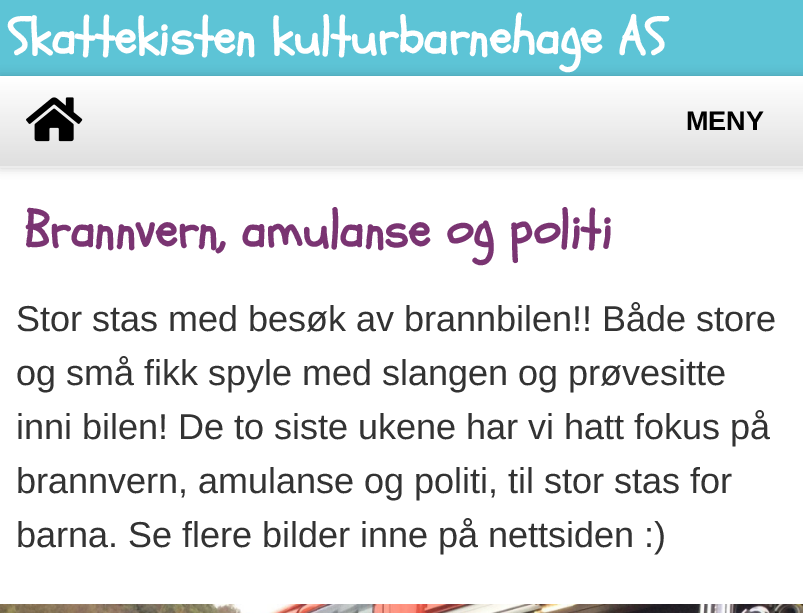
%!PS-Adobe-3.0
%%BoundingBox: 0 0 803 613
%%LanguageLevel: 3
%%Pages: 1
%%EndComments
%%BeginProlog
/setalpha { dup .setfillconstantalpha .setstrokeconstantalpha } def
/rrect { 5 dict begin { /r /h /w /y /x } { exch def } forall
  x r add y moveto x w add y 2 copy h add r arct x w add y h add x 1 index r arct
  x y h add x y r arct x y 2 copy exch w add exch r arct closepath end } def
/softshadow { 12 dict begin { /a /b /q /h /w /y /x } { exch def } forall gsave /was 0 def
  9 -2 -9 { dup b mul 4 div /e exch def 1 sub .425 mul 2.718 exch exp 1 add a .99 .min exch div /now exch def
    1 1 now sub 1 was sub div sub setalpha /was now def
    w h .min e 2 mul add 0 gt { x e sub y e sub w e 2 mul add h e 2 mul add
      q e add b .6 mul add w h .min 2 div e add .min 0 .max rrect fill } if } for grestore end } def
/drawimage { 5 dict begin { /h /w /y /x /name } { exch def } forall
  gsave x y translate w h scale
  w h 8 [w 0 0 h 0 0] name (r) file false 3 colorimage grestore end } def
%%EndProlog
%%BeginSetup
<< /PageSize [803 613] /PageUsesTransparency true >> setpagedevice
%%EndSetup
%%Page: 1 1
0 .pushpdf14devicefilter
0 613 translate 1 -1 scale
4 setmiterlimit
0.365 0.769 0.839 setrgbcolor
0 0 803 613 rectfill
1 setgray
0 168 803 436 rectfill
0 setgray
0 76 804 92 0 5 0.2 softshadow
0.925 setgray
0 166 803 2 rectfill
(images/1.raw) 0 76 803 90 drawimage
(images/2.raw) 26 97 57 45 drawimage
(images/3.raw) 0 604 803 9 drawimage
/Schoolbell-Bold [50.4 0 0 -50.4 0 0] selectfont
1 setgray
8 54 moveto (Skattekisten kulturbarnehage AS) show
/LiberationSans-Bold [27 0 0 -27 0 0] selectfont
0 setgray
686 130 moveto (MENY) show
/Schoolbell-Bold [50.4 0 0 -50.4 0 0] selectfont
0.478 0.204 0.447 setrgbcolor
24 247 moveto (Brannvern, amulanse og politi) show
/LiberationSans-Regular [36 0 0 -36 0 0] selectfont
0.2 setgray
16 331 moveto (Stor stas med besøk av brannbilen!! Både store) show
16 385 moveto (og små fikk spyle med slangen og prøvesitte) show
16 439 moveto (inni bilen! De to siste ukene har vi hatt fokus på) show
16 493 moveto (brannvern, amulanse og politi, til stor stas for) show
16 547 moveto (barna. Se flere bilder inne på nettsiden :\)) show
.poppdf14devicefilter showpage
%%EOF
